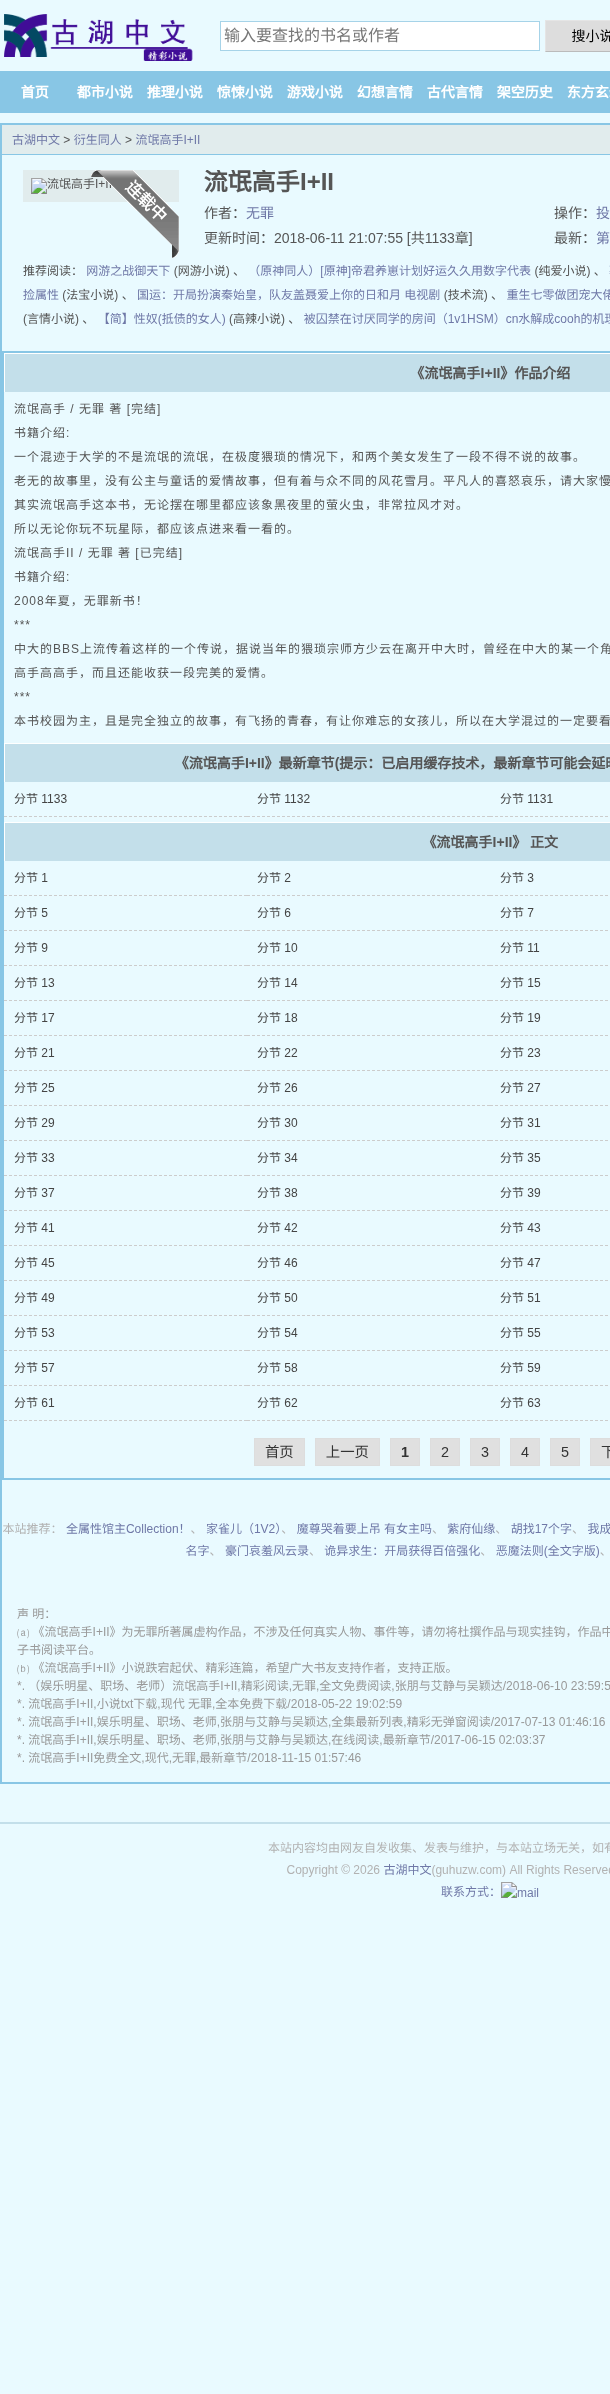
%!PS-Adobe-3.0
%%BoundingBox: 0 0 610 2394
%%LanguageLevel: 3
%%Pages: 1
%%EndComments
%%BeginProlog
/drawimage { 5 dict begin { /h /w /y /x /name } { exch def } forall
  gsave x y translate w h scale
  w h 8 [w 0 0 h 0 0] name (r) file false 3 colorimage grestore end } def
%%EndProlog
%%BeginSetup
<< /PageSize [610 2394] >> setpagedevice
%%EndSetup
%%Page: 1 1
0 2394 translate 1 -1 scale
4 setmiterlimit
1 setgray
0 0 610 2394 rectfill
(images/1.raw) 0 0 610 2394 drawimage
showpage
%%EOF
